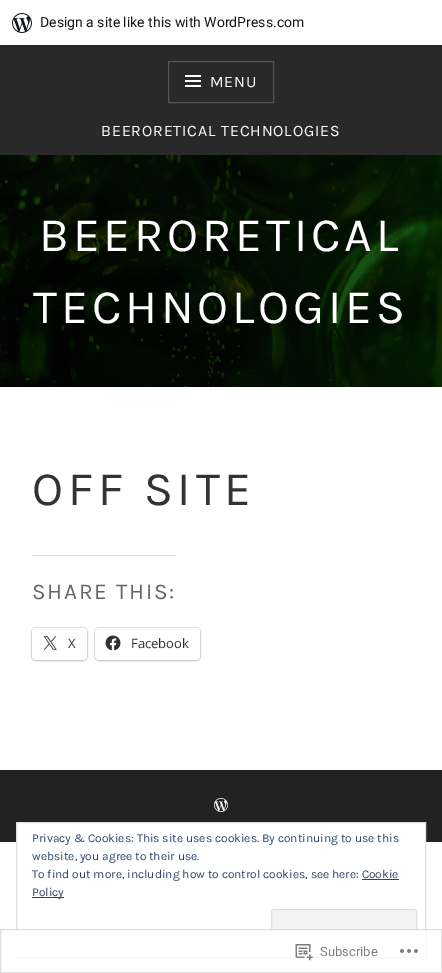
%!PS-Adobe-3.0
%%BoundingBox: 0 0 442 973
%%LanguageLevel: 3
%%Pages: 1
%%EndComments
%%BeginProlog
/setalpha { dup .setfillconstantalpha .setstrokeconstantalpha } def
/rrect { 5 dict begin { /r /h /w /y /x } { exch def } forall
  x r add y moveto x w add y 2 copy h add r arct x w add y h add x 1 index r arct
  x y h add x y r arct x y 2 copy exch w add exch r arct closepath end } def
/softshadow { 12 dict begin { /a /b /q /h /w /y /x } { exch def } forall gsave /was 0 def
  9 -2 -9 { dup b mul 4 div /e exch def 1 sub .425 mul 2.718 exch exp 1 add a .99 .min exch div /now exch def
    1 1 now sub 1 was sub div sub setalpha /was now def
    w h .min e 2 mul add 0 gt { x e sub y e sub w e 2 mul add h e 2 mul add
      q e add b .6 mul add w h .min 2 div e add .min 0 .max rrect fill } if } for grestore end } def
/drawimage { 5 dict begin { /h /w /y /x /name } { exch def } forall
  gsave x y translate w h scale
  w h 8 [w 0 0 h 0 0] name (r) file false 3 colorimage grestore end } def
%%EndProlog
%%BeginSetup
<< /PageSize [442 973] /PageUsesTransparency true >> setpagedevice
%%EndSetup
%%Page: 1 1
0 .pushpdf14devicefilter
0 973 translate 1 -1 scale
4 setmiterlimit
1 setgray
0 0 442 973 rectfill
0.161 0.161 0.165 setrgbcolor
0 45 442 110 rectfill
0.149 0.149 0.153 setrgbcolor
newpath 1 45 moveto 1 48 lineto 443 48 lineto 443 3 lineto 442 3 lineto 442 45 lineto closepath fill
(images/1.raw) 12 13 20 20 drawimage
0.329 0.329 0.333 setrgbcolor
168.5 61.5 105 41 rectstroke
(images/2.raw) 185 75 16 12 drawimage
(images/3.raw) 0 155 442 232 drawimage
0.863 0.863 0.871 setrgbcolor
32 555 144 1 rectfill
0.878 setgray
31.5 627.5 56 33 4.5 rrect stroke
0 setgray
32 629 55 32 4 1 0.12 softshadow
1 setgray
32 628 55 32 4 rrect fill
(images/4.raw) 43 636 14 14 drawimage
0.878 setgray
94.5 627.5 106 33 4.5 rrect stroke
0 setgray
95 629 105 32 4 1 0.12 softshadow
1 setgray
95 628 105 32 4 rrect fill
(images/5.raw) 105 635 16 16 drawimage
0.133 setgray
0 770 442 72 rectfill
(images/6.raw) 214 798 14 14 drawimage
1 setgray
17 823 408 19 rectfill
0.871 setgray
16.5 822.5 409 134 rectstroke
0.18 0.267 0.404 setrgbcolor
362 879 37 1 rectfill
32 897 32 1 rectfill
0.953 setgray
271.5 909.5 145 38 2.5 rrect gsave fill grestore
0.871 setgray
stroke
0.98 setalpha
1 setgray
16 929 410 28 rectfill
0.863 0.863 0.871 setrgbcolor
0.5 929.5 441 43 rectstroke
1 setalpha
(images/7.raw) 295 944 18 17 drawimage
(images/8.raw) 400 949 18 4 drawimage
/Roboto-Regular [14 0 0 -14 0 0] selectfont
0.09 setgray
40 27 moveto (Design a site like this with WordPress.com) show
/Karla-Regular [16 0 0 -16 0 0] selectfont
1 setgray
210 87 moveto 0.8 0 (MENU) ashow
101 136 moveto 0.8 0 (BEERORETICAL TECHNOLOGIES) ashow
/Karla-Regular [48 0 0 -48 0 0] selectfont
39 251 moveto 3.8 0 (BEERORETICAL) ashow
33 323 moveto 3.8 0 (TECHNOLOGIES) ashow
0.2 setgray
32 505 moveto 4.75 0 (OFF SITE) ashow
/Karla-Regular [22.5 0 0 -22.5 0 0] selectfont
0.4 setgray
32 599 moveto 1.75 0 (SHARE THIS:) ashow
/OpenSans-Regular [13 0 0 -13 0 0] selectfont
0.173 0.2 0.22 setrgbcolor
68 648 moveto (X) show
131 648 moveto (Facebook) show
/Karla-Regular [12 0 0 -12 0 0] selectfont
0.18 0.267 0.404 setrgbcolor
32 842 moveto (Privacy & Cookies: This site uses cookies. By continuing to use this) show
32 860 moveto (website, you agree to their use.) show
32 878 moveto (To find out more, including how to control cookies, see here: Cookie) show
32 896 moveto (Policy) show
/Roboto-Regular [13 0 0 -13 0 0] selectfont
0.482 0.498 0.518 setrgbcolor
320 956 moveto (Subscribe) show
.poppdf14devicefilter showpage
%%EOF
